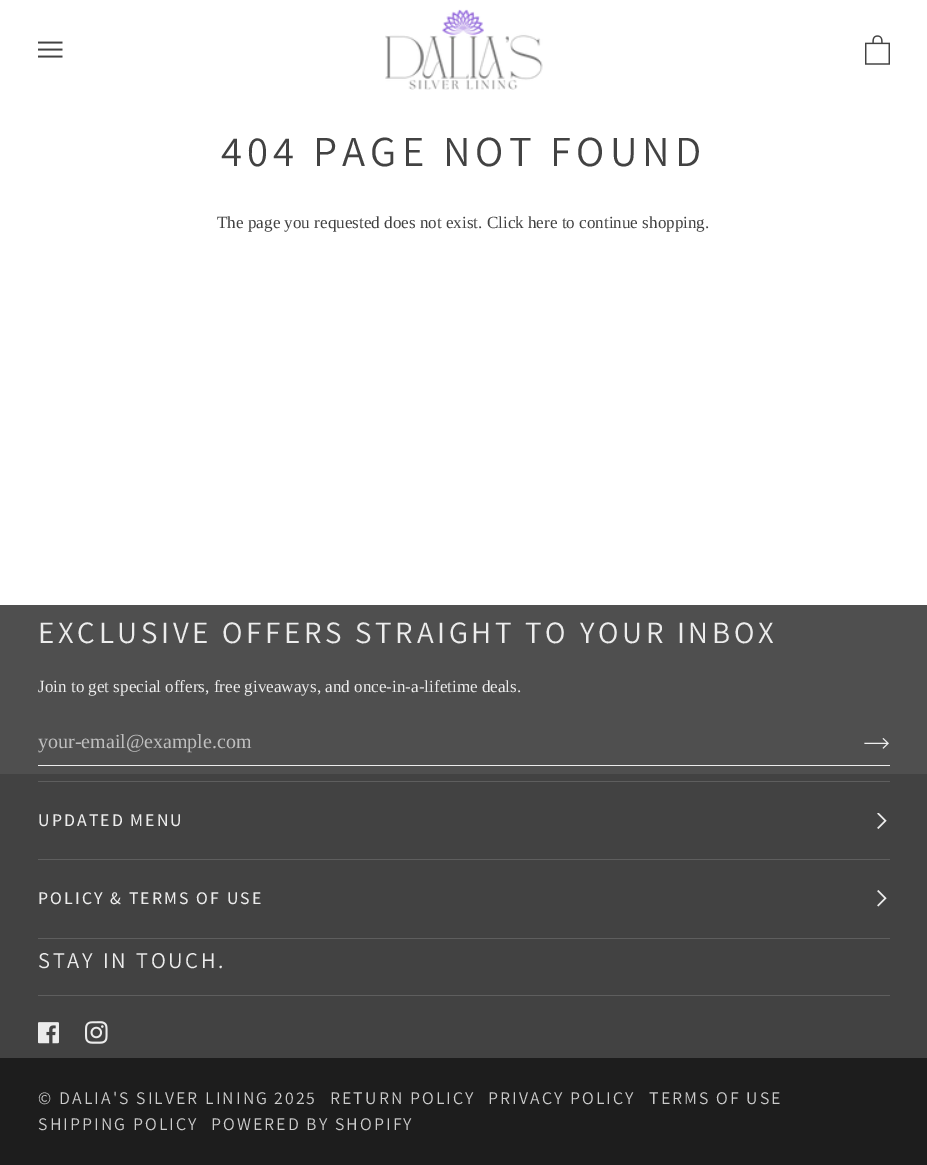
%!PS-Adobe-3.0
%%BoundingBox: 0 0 927 1165
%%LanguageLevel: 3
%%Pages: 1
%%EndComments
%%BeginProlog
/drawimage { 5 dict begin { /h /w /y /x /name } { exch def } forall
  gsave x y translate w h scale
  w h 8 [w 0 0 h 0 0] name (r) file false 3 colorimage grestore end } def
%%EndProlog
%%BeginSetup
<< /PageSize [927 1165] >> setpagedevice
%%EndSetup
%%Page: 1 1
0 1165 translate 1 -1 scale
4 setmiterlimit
1 setgray
0 0 927 1165 rectfill
(images/1.raw) 38 41 25 17 drawimage
(images/2.raw) 385 9 158 81 drawimage
(images/3.raw) 865 35 25 30 drawimage
0.259 setgray
0 774 927 284 rectfill
0.31 setgray
0 605 927 169 rectfill
0.929 setgray
38 765 852 1 rectfill
(images/4.raw) 864 738 25 11 drawimage
0.369 setgray
38 781 852 1 rectfill
38 859 852 1 rectfill
(images/5.raw) 877 813 10 16 drawimage
38 938 852 1 rectfill
(images/6.raw) 877 890 10 17 drawimage
38 995 852 1 rectfill
(images/7.raw) 38 1022 21 22 drawimage
(images/8.raw) 85 1021 23 23 drawimage
0.114 setgray
0 1058 927 107 rectfill
/Assistant-Regular [42.75 0 0 -42.75 0 0] selectfont
0.259 setgray
221 166 moveto 5.1 0 (404 PAGE NOT FOUND) ashow
/LiberationSerif-Regular [17.1 0 0 -17.1 0 0] selectfont
217 228 moveto (The page you requested does not exist. Click here to continue shopping.) show
/Assistant-Regular [31 0 0 -31 0 0] selectfont
0.925 setgray
38 643 moveto 3.7 0 (EXCLUSIVE OFFERS STRAIGHT TO YOUR INBOX) ashow
/LiberationSerif-Regular [17.1 0 0 -17.1 0 0] selectfont
38 692 moveto (Join to get special offers, free giveaways, and once-in-a-lifetime deals.) show
/LiberationSerif-Regular [20 0 0 -20 0 0] selectfont
0.745 setgray
38 748 moveto (your-email@example.com) show
/Assistant-Medium [17.75 0 0 -17.75 0 0] selectfont
0.925 setgray
38 826 moveto 2.1 0 (UPDATED MENU) ashow
38 904 moveto 2.1 0 (POLICY & TERMS OF USE) ashow
/Assistant-Regular [22.5 0 0 -22.5 0 0] selectfont
38 968 moveto 2.75 0 (STAY IN TOUCH.) ashow
/Assistant-Regular [17.75 0 0 -17.75 0 0] selectfont
0.8 setgray
38 1104 moveto 2.1 0 (© DALIA'S SILVER LINING) ashow
274 1104 moveto 2.1 0 (2025) ashow
330 1104 moveto 2.1 0 (RETURN POLICY) ashow
488 1104 moveto 2.1 0 (PRIVACY POLICY) ashow
649 1104 moveto 2.1 0 (TERMS OF USE) ashow
38 1130 moveto 2.1 0 (SHIPPING POLICY) ashow
211 1130 moveto 2.1 0 (POWERED BY SHOPIFY) ashow
showpage
%%EOF
